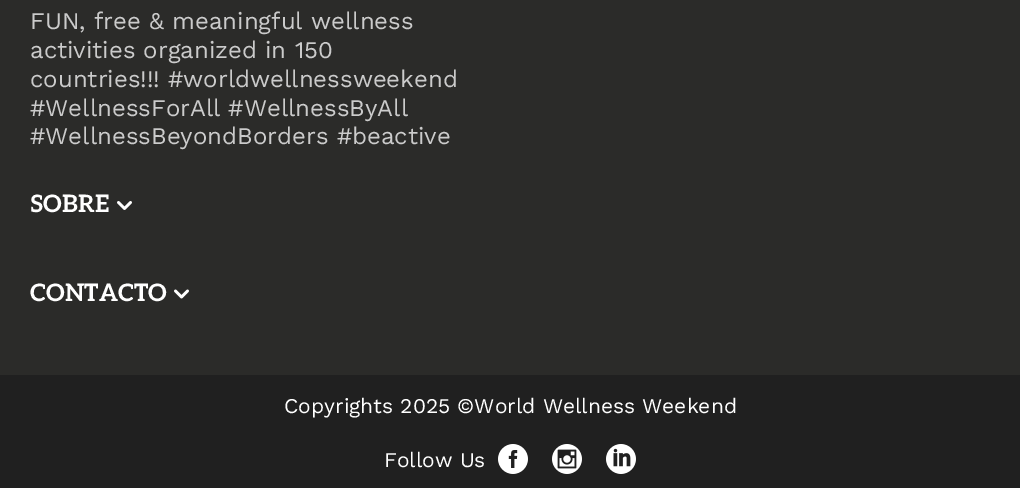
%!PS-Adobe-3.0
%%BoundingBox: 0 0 1020 488
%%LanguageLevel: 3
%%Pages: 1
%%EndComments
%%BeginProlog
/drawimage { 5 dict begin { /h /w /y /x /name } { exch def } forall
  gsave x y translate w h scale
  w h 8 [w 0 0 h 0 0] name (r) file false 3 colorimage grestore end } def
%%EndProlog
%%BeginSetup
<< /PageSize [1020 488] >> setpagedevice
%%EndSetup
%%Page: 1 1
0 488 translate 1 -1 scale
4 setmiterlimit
0.169 0.169 0.161 setrgbcolor
0 0 1020 488 rectfill
(images/1.raw) 117 201 15 9 drawimage
(images/2.raw) 174 289 15 10 drawimage
0.125 setgray
0 375 1020 113 rectfill
(images/3.raw) 498 444 30 30 drawimage
(images/4.raw) 552 444 30 30 drawimage
(images/5.raw) 606 444 30 30 drawimage
/WorkSans-Regular [24 0 0 -24 0 0] selectfont
0.796 setgray
30 29 moveto (FUN, free & meaningful wellness) show
30 58 moveto (activities organized in 150) show
30 87 moveto (countries!!! #worldwellnessweekend) show
30 116 moveto (#WellnessForAll #WellnessByAll) show
30 144 moveto (#WellnessBeyondBorders #beactive) show
/Aleo-Bold [24 0 0 -24 0 0] selectfont
1 setgray
30 212 moveto (SOBRE) show
30 301 moveto (CONTACTO) show
/WorkSans-Regular [21 0 0 -21 0 0] selectfont
284 413 moveto (Copyrights 2025 ©World Wellness Weekend) show
384 467 moveto (Follow Us) show
showpage
%%EOF
